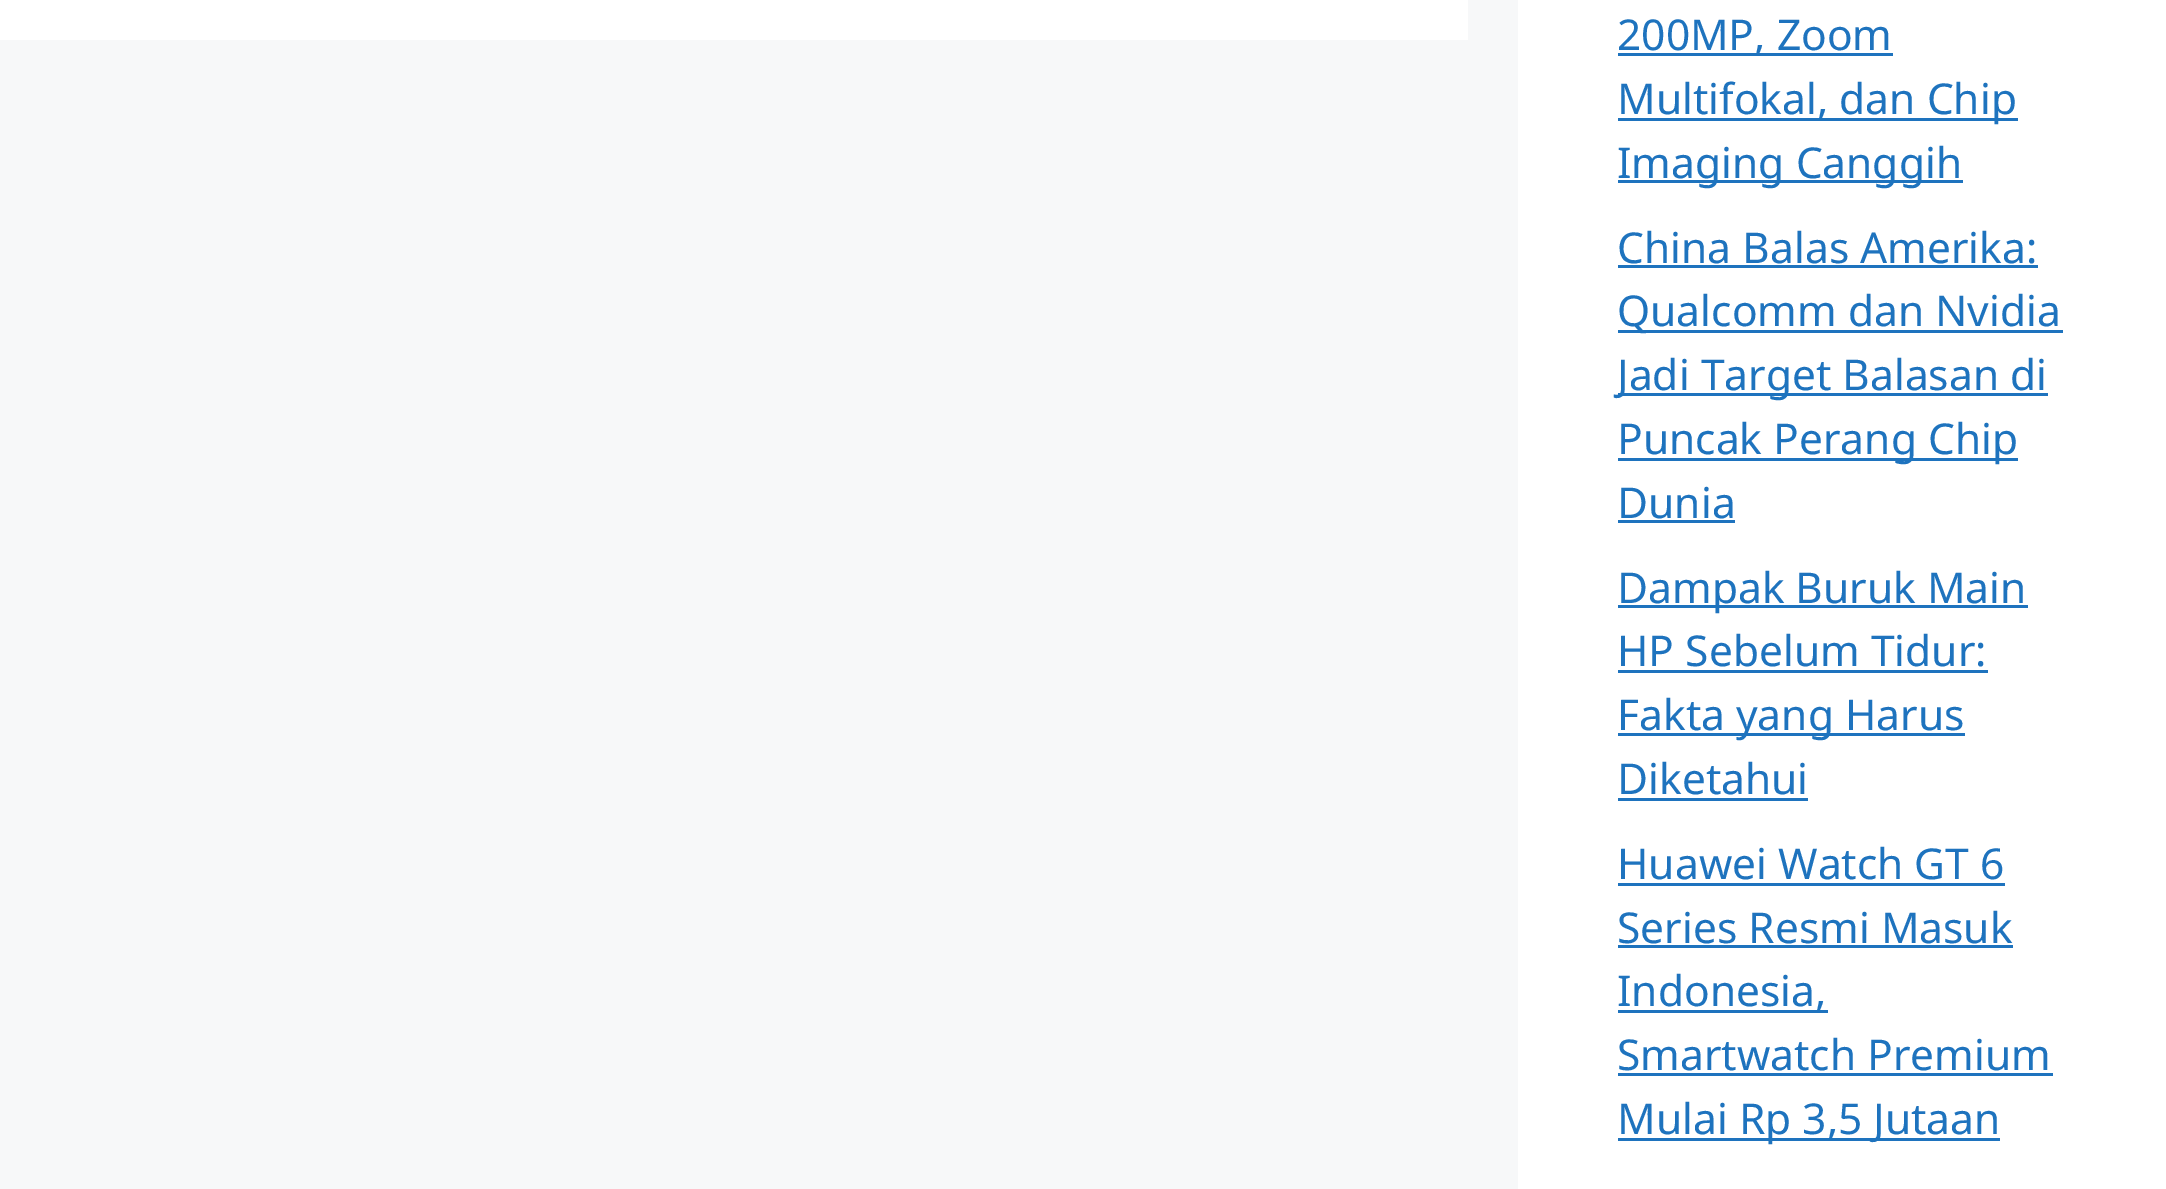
%!PS-Adobe-3.0
%%BoundingBox: 0 0 2166 1189
%%LanguageLevel: 3
%%Pages: 1
%%EndComments
%%BeginProlog
%%EndProlog
%%BeginSetup
<< /PageSize [2166 1189] >> setpagedevice
%%EndSetup
%%Page: 1 1
0 1189 translate 1 -1 scale
4 setmiterlimit
0.969 0.973 0.976 setrgbcolor
0 0 2166 1189 rectfill
1 setgray
0 0 1468 40 rectfill
1518 0 648 1189 rectfill
0.118 0.451 0.745 setrgbcolor
1618 53 275 3 rectfill
1618 118 400 3 rectfill
1618 180 345 3 rectfill
1618 265 420 3 rectfill
1618 330 445 3 rectfill
1618 393 430 3 rectfill
1618 458 400 3 rectfill
1618 520 117 3 rectfill
1618 605 410 3 rectfill
1618 670 370 3 rectfill
1618 733 347 3 rectfill
1618 798 190 3 rectfill
1618 883 387 3 rectfill
1618 945 395 3 rectfill
1618 1010 210 3 rectfill
1618 1073 435 3 rectfill
1618 1138 382 3 rectfill
/NotoSans-Regular [42.5 0 0 -42.5 0 0] selectfont
1617 50 moveto (200MP, Zoom) show
1617 114 moveto (Multifokal, dan Chip) show
1617 178 moveto (Imaging Canggih) show
1617 263 moveto (China Balas Amerika:) show
1617 326 moveto (Qualcomm dan Nvidia) show
1617 390 moveto (Jadi Target Balasan di) show
1617 454 moveto (Puncak Perang Chip) show
1617 518 moveto (Dunia) show
1617 603 moveto (Dampak Buruk Main) show
1617 666 moveto (HP Sebelum Tidur:) show
1617 730 moveto (Fakta yang Harus) show
1617 794 moveto (Diketahui) show
1617 879 moveto (Huawei Watch GT 6) show
1617 943 moveto (Series Resmi Masuk) show
1617 1006 moveto (Indonesia,) show
1617 1070 moveto (Smartwatch Premium) show
1617 1134 moveto (Mulai Rp 3,5 Jutaan) show
showpage
%%EOF
